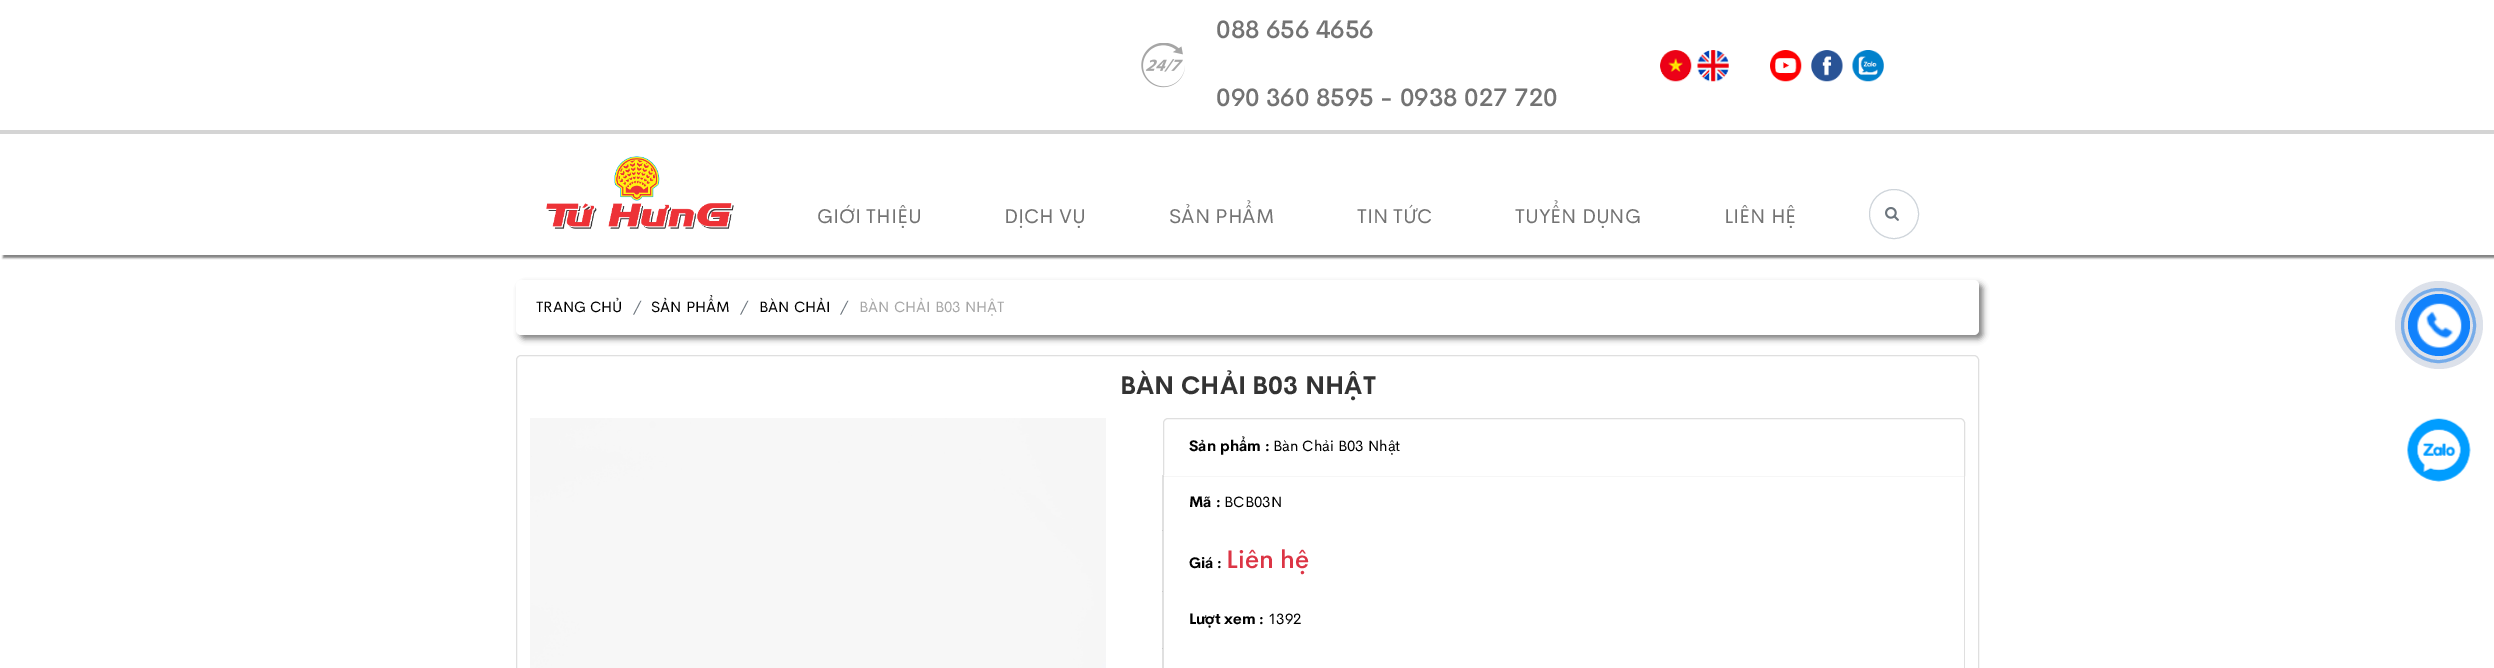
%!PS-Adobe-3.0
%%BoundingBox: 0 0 2494 668
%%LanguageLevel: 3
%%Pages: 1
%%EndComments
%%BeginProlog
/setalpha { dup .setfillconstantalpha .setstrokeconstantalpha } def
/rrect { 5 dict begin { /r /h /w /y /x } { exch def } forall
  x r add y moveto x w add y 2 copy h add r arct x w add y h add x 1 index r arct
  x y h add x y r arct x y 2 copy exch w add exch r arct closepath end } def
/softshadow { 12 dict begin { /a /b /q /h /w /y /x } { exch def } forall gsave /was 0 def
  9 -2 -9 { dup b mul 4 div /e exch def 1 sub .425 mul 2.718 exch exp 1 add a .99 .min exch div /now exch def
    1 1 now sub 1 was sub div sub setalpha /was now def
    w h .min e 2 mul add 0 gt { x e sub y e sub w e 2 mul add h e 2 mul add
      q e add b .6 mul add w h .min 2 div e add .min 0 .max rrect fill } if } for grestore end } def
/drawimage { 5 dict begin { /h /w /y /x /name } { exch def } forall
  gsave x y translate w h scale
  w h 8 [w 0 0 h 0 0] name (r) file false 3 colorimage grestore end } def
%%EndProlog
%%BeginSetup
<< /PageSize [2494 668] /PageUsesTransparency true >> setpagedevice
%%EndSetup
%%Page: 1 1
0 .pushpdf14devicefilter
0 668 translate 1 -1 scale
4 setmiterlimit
1 setgray
0 0 2494 668 rectfill
(images/1.raw) 1141 43 44 45 drawimage
(images/2.raw) 1660 50 32 32 drawimage
(images/3.raw) 1697 50 32 32 drawimage
(images/4.raw) 1770 50 32 32 drawimage
(images/5.raw) 1811 50 32 32 drawimage
(images/6.raw) 1852 50 32 32 drawimage
gsave
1 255 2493 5 rectclip
0.502 setgray
3 133 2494 125 0 1 1 softshadow
grestore
0.831 setgray
0 130 2494 4 rectfill
(images/7.raw) 546 156 188 73 drawimage
0.808 0.831 0.855 setrgbcolor
newpath 1894 214 24.5 0 360 arc closepath stroke
(images/8.raw) 1885 207 14 14 drawimage
0.502 setgray
520 284 1463 55 5 3 1 softshadow
1 setgray
516 280 1463 55 5 rrect fill
0.875 setgray
516.5 355.5 1462 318 4.5 rrect stroke
(images/9.raw) 530 418 576 250 drawimage
newpath 1168 418.5 moveto 1960 418.5 lineto 1962.5 418.5 1964.5 420.5 1964.5 423 curveto 1964.5 475.5 lineto 1163.5 475.5 lineto 1163.5 423 lineto 1163.5 420.5 1165.5 418.5 1168 418.5 curveto closepath stroke
1 setgray
1163 475 801 1 rectfill
0.875 setgray
newpath 1965 475 moveto 1965 531 lineto 1964 530 lineto 1964 475 lineto closepath fill
0.12 setalpha
0 setgray
newpath 1162 531 moveto 1162 475 lineto 1164 475 lineto 1164 530 lineto closepath fill
1 setalpha
1 setgray
1163 530 1 1 rectfill
0.875 setgray
newpath 1965 530 moveto 1965 592 lineto 1964 591 lineto 1964 530 lineto closepath fill
0.12 setalpha
0 setgray
newpath 1162 592 moveto 1162 530 lineto 1164 530 lineto 1164 591 lineto closepath fill
1 setalpha
1 setgray
1163 591 1 1 rectfill
0.875 setgray
newpath 1965 591 moveto 1965 649 lineto 1964 648 lineto 1964 591 lineto closepath fill
0.12 setalpha
0 setgray
newpath 1162 649 moveto 1162 591 lineto 1164 591 lineto 1164 648 lineto closepath fill
1 setalpha
1 setgray
1163 648 1 1 rectfill
0.875 setgray
newpath 1965 648 moveto 1965 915 lineto 1964 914 lineto 1964 648 lineto closepath fill
0.12 setalpha
0 setgray
newpath 1162 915 moveto 1162 648 lineto 1164 648 lineto 1164 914 lineto closepath fill
1 setalpha
0.533 0.757 0.996 setrgbcolor
3 setlinewidth
newpath 2438.5 325.5 36 0 360 arc closepath stroke
0.14 setalpha
0.027 0.161 0.404 setrgbcolor
newpath 2439 325 44 0 360 arc closepath fill
1 setalpha
0.067 0.51 0.988 setrgbcolor
newpath 2439 325 31 0 360 arc closepath fill
(images/10.raw) 2417 303 45 45 drawimage
(images/11.raw) 2407 418 64 64 drawimage
/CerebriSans-Medium [25 0 0 -25 0 0] selectfont
0.451 setgray
1216 38 moveto (088 656 4656) show
1216 106 moveto (090 360 8595 - 0938 027 720) show
/CerebriSans-Regular [20 0 0 -20 0 0] selectfont
817 223 moveto (GIỚI THIỆU) show
1004 223 moveto (DỊCH VỤ) show
1169 223 moveto (SẢN PHẨM) show
1357 223 moveto (TIN TỨC) show
1515 223 moveto (TUYỂN DỤNG) show
1724 223 moveto (LIÊN HỆ) show
/CerebriSans-Regular [15 0 0 -15 0 0] selectfont
0 setgray
536 312 moveto (TRANG CHỦ) show
0.424 0.459 0.49 setrgbcolor
633 312 moveto (/) show
0 setgray
651 312 moveto (SẢN PHẨM) show
0.424 0.459 0.49 setrgbcolor
740 312 moveto (/) show
0 setgray
759 312 moveto (BÀN CHẢI) show
0.424 0.459 0.49 setrgbcolor
840 312 moveto (/) show
0.651 setgray
859 312 moveto (BÀN CHẢI B03 NHẬT) show
/CerebriSans-Bold [25 0 0 -25 0 0] selectfont
0.2 setgray
1120 394 moveto (BÀN CHẢI B03 NHẬT) show
/CerebriSans-Bold [15 0 0 -15 0 0] selectfont
0 setgray
1189 451 moveto (Sản phẩm :) show
/CerebriSans-Regular [15 0 0 -15 0 0] selectfont
1273 451 moveto (Bàn Chải B03 Nhật) show
/CerebriSans-Bold [15 0 0 -15 0 0] selectfont
1189 507 moveto (Mã :) show
/CerebriSans-Regular [15 0 0 -15 0 0] selectfont
1224 507 moveto (BCB03N) show
/CerebriSans-Bold [15 0 0 -15 0 0] selectfont
1189 568 moveto (Giá :) show
/CerebriSans-Medium [25 0 0 -25 0 0] selectfont
0.863 0.208 0.271 setrgbcolor
1226 568 moveto (Liên hệ) show
/CerebriSans-Bold [15 0 0 -15 0 0] selectfont
0 setgray
1189 624 moveto (Lượt xem :) show
/CerebriSans-Regular [15 0 0 -15 0 0] selectfont
1268 624 moveto (1392) show
.poppdf14devicefilter showpage
%%EOF
